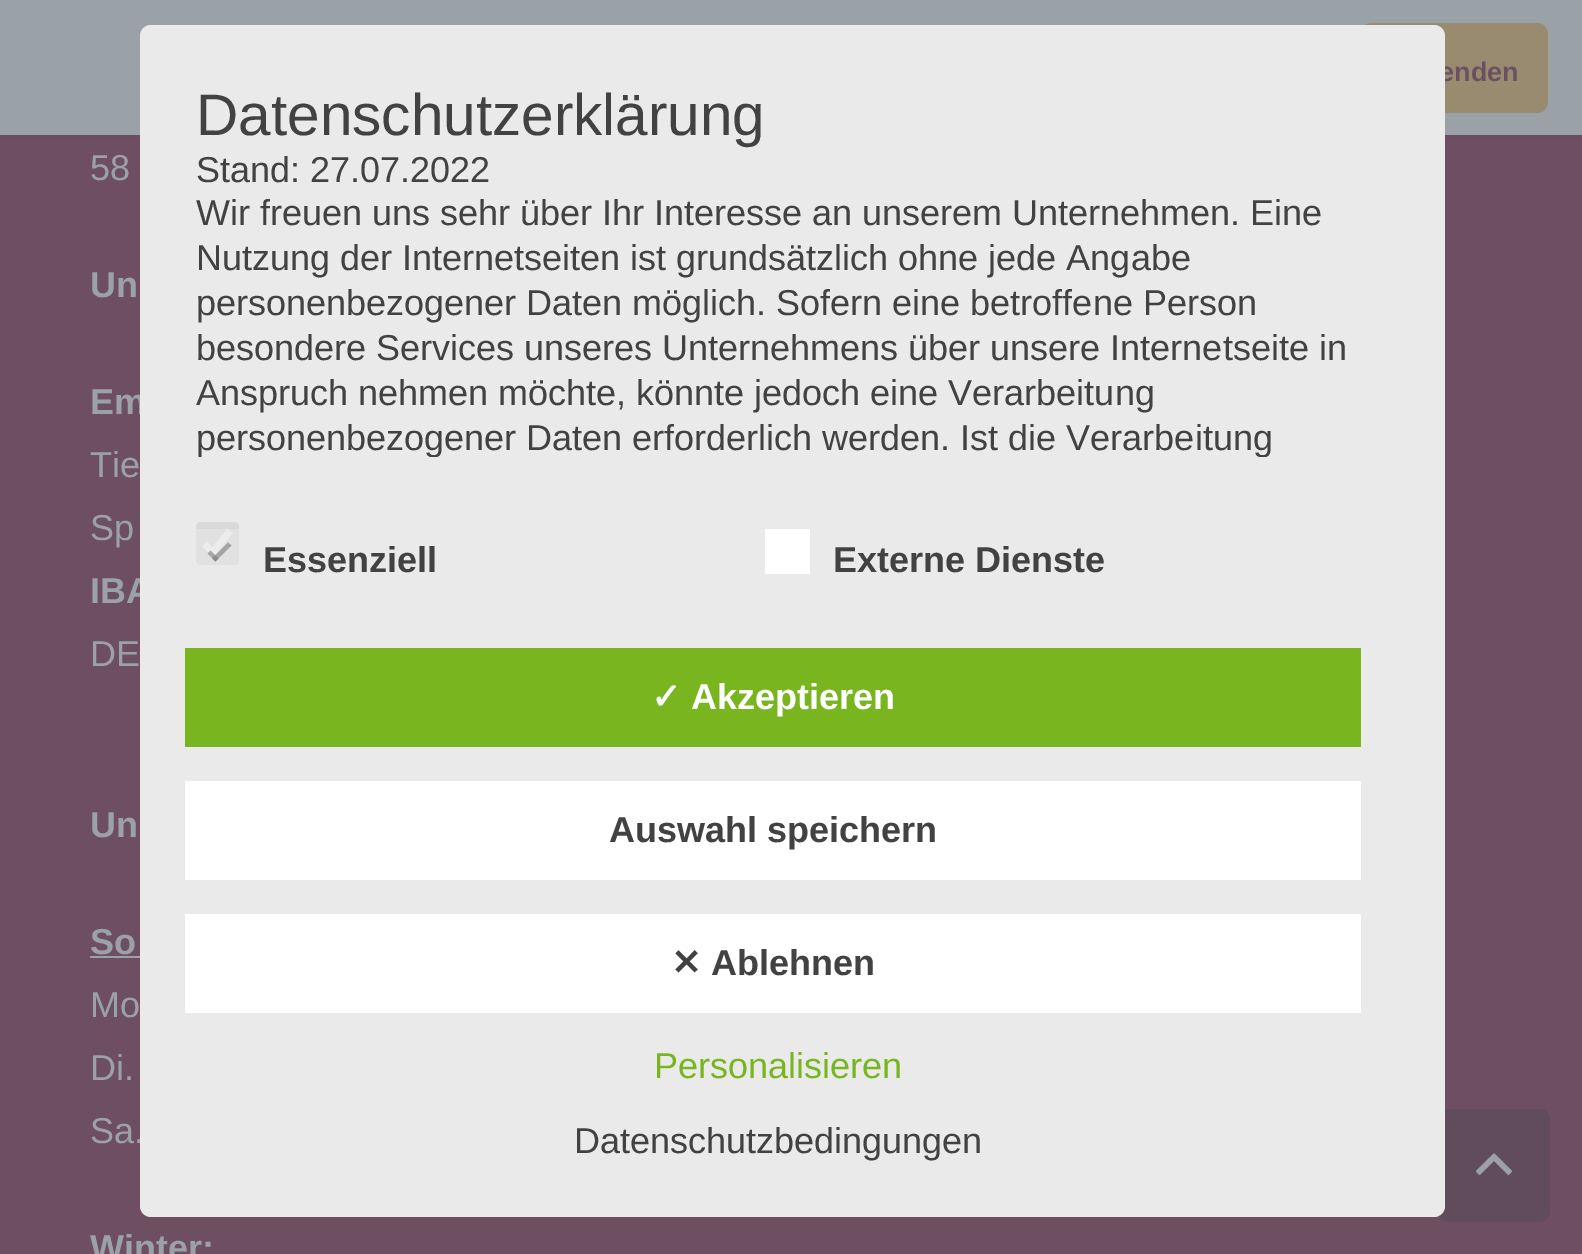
%!PS-Adobe-3.0
%%BoundingBox: 0 0 1582 1254
%%LanguageLevel: 3
%%Pages: 1
%%EndComments
%%BeginProlog
/setalpha { dup .setfillconstantalpha .setstrokeconstantalpha } def
/rrect { 5 dict begin { /r /h /w /y /x } { exch def } forall
  x r add y moveto x w add y 2 copy h add r arct x w add y h add x 1 index r arct
  x y h add x y r arct x y 2 copy exch w add exch r arct closepath end } def
/drawimage { 5 dict begin { /h /w /y /x /name } { exch def } forall
  gsave x y translate w h scale
  w h 8 [w 0 0 h 0 0] name (r) file false 3 colorimage grestore end } def
%%EndProlog
%%BeginSetup
<< /PageSize [1582 1254] /PageUsesTransparency true >> setpagedevice
%%EndSetup
%%Page: 1 1
0 .pushpdf14devicefilter
0 1254 translate 1 -1 scale
4 setmiterlimit
0.431 0.306 0.384 setrgbcolor
0 0 1582 1254 rectfill
0.416 0.306 0.376 setrgbcolor
0 135 1582 2 rectfill
0.608 0.635 0.655 setrgbcolor
0 0 1582 135 rectfill
0.596 0.545 0.439 setrgbcolor
1361 23 187 90 11 rrect fill
0.608 0.635 0.655 setrgbcolor
90 956 50 2 rectfill
0.376 0.298 0.357 setrgbcolor
1438 1109 112 113 11 rrect fill
(images/1.raw) 1476 1153 36 22 drawimage
/LiberationSans-Bold [27 0 0 -27 0 0] selectfont
0.424 0.314 0.384 setrgbcolor
1439 81 moveto (enden) show
/LiberationSans-Regular [36 0 0 -36 0 0] selectfont
0.608 0.635 0.655 setrgbcolor
90 180 moveto (58) show
/LiberationSans-Bold [36 0 0 -36 0 0] selectfont
90 297 moveto (Un) show
90 414 moveto (Em) show
/LiberationSans-Regular [36 0 0 -36 0 0] selectfont
90 477 moveto (Tie) show
90 540 moveto (Sp) show
/LiberationSans-Bold [36 0 0 -36 0 0] selectfont
90 603 moveto (IBA) show
/LiberationSans-Regular [36 0 0 -36 0 0] selectfont
90 666 moveto (DE) show
/LiberationSans-Bold [36 0 0 -36 0 0] selectfont
90 837 moveto (Un) show
90 954 moveto (So) show
/LiberationSans-Regular [36 0 0 -36 0 0] selectfont
90 1017 moveto (Mo) show
90 1080 moveto (Di.) show
90 1143 moveto (Sa.) show
/LiberationSans-Bold [36 0 0 -36 0 0] selectfont
90 1260 moveto (Winter:) show
0.918 setgray
140 25 1305 1192 11 rrect fill
/LiberationSans-Regular [58.5 0 0 -58.5 0 0] selectfont
0.259 setgray
196 135 moveto (Datenschutzerklärung) show
/LiberationSans-Regular [36 0 0 -36 0 0] selectfont
196 182 moveto (Stand: 27.07.2022) show
196 225 moveto (Wir freuen uns sehr über Ihr Interesse an unserem Unternehmen. Eine) show
196 270 moveto (Nutzung der Internetseiten ist grundsätzlich ohne jede Angabe) show
196 315 moveto (personenbezogener Daten möglich. Sofern eine betroffene Person) show
196 360 moveto (besondere Services unseres Unternehmens über unsere Internetseite in) show
196 405 moveto (Anspruch nehmen möchte, könnte jedoch eine Verarbeitung) show
gsave
196 81 1215 376 rectclip
196 450 moveto (personenbezogener Daten erforderlich werden. Ist die Verarbeitung) show
grestore
0.851 setgray
196 522 43 43 5 rrect fill
0.961 setgray
6.8 setlinewidth
newpath 204.5 544 moveto 213 552.5 lineto 230 531 lineto stroke
0.6 setalpha
0.902 setgray
196 529 43 36 rectfill
0.482 setgray
newpath 228 542.5 moveto 231.5 545.5 lineto 215.5 561.5 lineto 212 558.5 lineto closepath fill
newpath 210.5 550.5 moveto 218.5 558.5 lineto 215.5 561.5 lineto 207.5 553.5 lineto closepath fill
/LiberationSans-Bold [36 0 0 -36 0 0] selectfont
1 setalpha
0.259 setgray
263 572 moveto (Essenziell) show
1 setgray
765 529 45 45 rectfill
0.259 setgray
833 572 moveto (Externe Dienste) show
0.475 0.71 0.122 setrgbcolor
185 648 1176 99 rectfill
/DejaVuSans-Bold [36 0 0 -36 0 0] selectfont
1 setgray
651 709 moveto (✓) show
/LiberationSans-Bold [36 0 0 -36 0 0] selectfont
691 709 moveto (Akzeptieren) show
185 781 1176 99 rectfill
0.259 setgray
609 842 moveto (Auswahl speichern) show
1 setgray
185 914 1176 99 rectfill
/DejaVuSans-Bold [36 0 0 -36 0 0] selectfont
0.259 setgray
671 975 moveto (✕) show
/LiberationSans-Bold [36 0 0 -36 0 0] selectfont
711 975 moveto (Ablehnen) show
/LiberationSans-Regular [36 0 0 -36 0 0] selectfont
0.475 0.71 0.122 setrgbcolor
654 1078 moveto (Personalisieren) show
0.259 setgray
574 1153 moveto (Datenschutzbedingungen) show
.poppdf14devicefilter showpage
%%EOF
